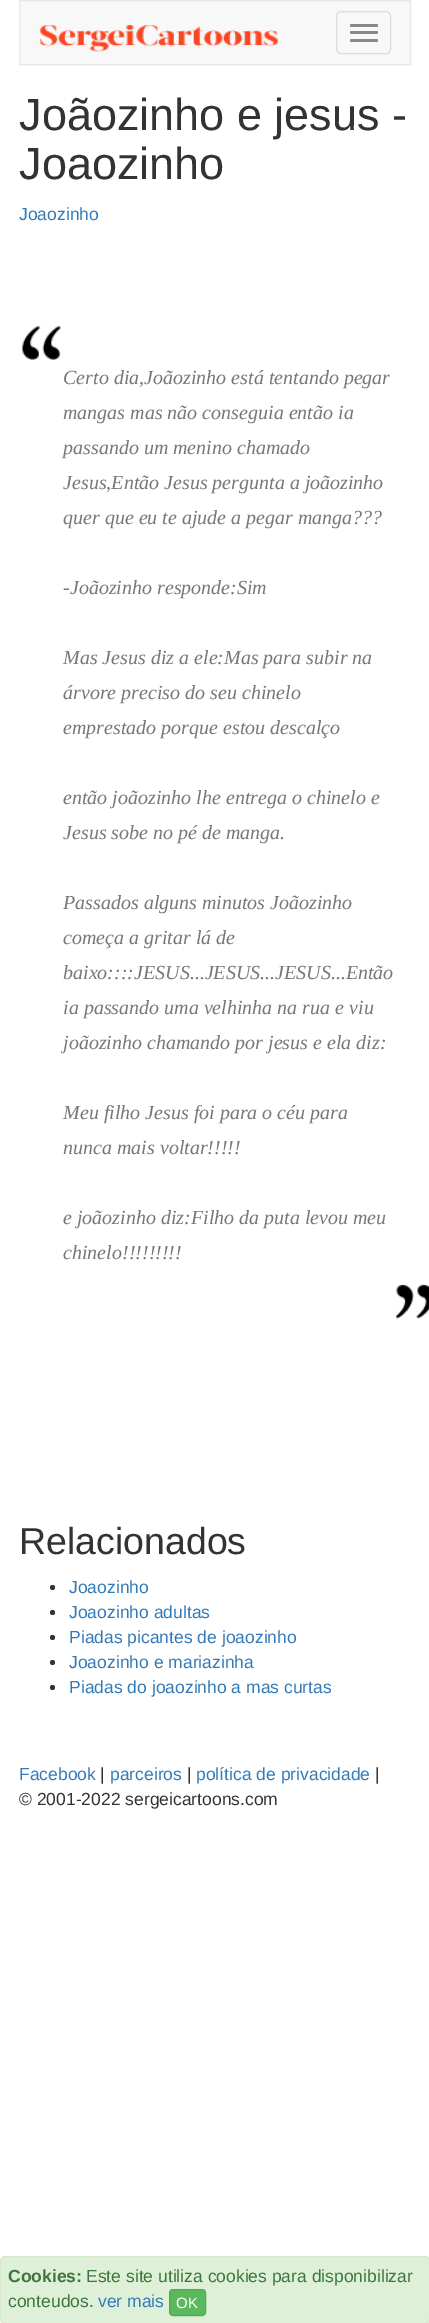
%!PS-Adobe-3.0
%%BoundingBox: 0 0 429 2323
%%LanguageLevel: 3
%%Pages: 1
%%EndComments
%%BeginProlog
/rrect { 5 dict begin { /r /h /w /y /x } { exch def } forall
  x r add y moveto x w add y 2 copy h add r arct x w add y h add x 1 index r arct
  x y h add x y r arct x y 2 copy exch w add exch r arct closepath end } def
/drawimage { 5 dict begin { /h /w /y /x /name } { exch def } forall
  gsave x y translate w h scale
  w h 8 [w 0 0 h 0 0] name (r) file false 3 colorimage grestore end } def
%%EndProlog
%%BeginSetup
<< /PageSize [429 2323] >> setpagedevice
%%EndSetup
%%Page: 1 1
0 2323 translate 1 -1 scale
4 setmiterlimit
1 setgray
0 0 429 2323 rectfill
0.973 setgray
newpath 19.5 0.5 moveto 410.5 0.5 lineto 410.5 64.5 lineto 19.5 64.5 lineto closepath gsave fill grestore
0.906 setgray
stroke
(images/1.raw) 39 24 240 28 drawimage
0.867 setgray
336.5 11.5 54 42 4.5 rrect stroke
0.533 setgray
350 24 28 3 1.5 rrect fill
350 31 28 3 1.5 rrect fill
350 39 28 3 1.5 rrect fill
(images/2.raw) 22 326 40 34 drawimage
(images/3.raw) 396 1284 33 35 drawimage
0.2 setgray
newpath 52.5 1587.5 2.5 0 360 arc closepath fill
newpath 52.5 1612.5 2.5 0 360 arc closepath fill
newpath 52.5 1637.5 2.5 0 360 arc closepath fill
newpath 52.5 1662.5 2.5 0 360 arc closepath fill
newpath 52.5 1687.5 2.5 0 360 arc closepath fill
0.875 0.941 0.847 setrgbcolor
0.5 2256.5 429 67 4.5 rrect gsave fill grestore
0.839 0.914 0.776 setrgbcolor
stroke
0.361 0.722 0.361 setrgbcolor
169.5 2289.5 36 26 3.5 rrect gsave fill grestore
0.298 0.682 0.298 setrgbcolor
stroke
/LiberationSans-Regular [45 0 0 -45 0 0] selectfont
0.2 setgray
19 130 moveto (Joãozinho e jesus -) show
19 179 moveto (Joaozinho) show
/LiberationSans-Regular [17.5 0 0 -17.5 0 0] selectfont
0.2 0.478 0.718 setrgbcolor
19 220 moveto (Joaozinho) show
/LiberationSerif-Italic [20 0 0 -20 0 0] selectfont
0.467 setgray
63 384 moveto (Certo dia,Joãozinho está tentando pegar) show
63 419 moveto (mangas mas não conseguia então ia) show
63 454 moveto (passando um menino chamado) show
63 489 moveto (Jesus,Então Jesus pergunta a joãozinho) show
63 524 moveto (quer que eu te ajude a pegar manga???) show
63 594 moveto (-Joãozinho responde:Sim) show
63 664 moveto (Mas Jesus diz a ele:Mas para subir na) show
63 699 moveto (árvore preciso do seu chinelo) show
63 734 moveto (emprestado porque estou descalço) show
63 804 moveto (então joãozinho lhe entrega o chinelo e) show
63 839 moveto (Jesus sobe no pé de manga.) show
63 909 moveto (Passados alguns minutos Joãozinho) show
63 944 moveto (começa a gritar lá de) show
63 979 moveto (baixo::::JESUS...JESUS...JESUS...Então) show
63 1014 moveto (ia passando uma velhinha na rua e viu) show
63 1049 moveto (joãozinho chamando por jesus e ela diz:) show
63 1119 moveto (Meu filho Jesus foi para o céu para) show
63 1154 moveto (nunca mais voltar!!!!!) show
63 1224 moveto (e joãozinho diz:Filho da puta levou meu) show
63 1259 moveto (chinelo!!!!!!!!!) show
/LiberationSans-Regular [37.5 0 0 -37.5 0 0] selectfont
0.2 setgray
19 1554 moveto (Relacionados) show
/LiberationSans-Regular [17.5 0 0 -17.5 0 0] selectfont
0.2 0.478 0.718 setrgbcolor
69 1593 moveto (Joaozinho) show
69 1618 moveto (Joaozinho adultas) show
69 1643 moveto (Piadas picantes de joaozinho) show
69 1668 moveto (Joaozinho e mariazinha) show
69 1693 moveto (Piadas do joaozinho a mas curtas) show
19 1780 moveto (Facebook) show
0.2 setgray
100 1780 moveto (|) show
0.2 0.478 0.718 setrgbcolor
110 1780 moveto (parceiros) show
0.2 setgray
187 1780 moveto (|) show
0.2 0.478 0.718 setrgbcolor
196 1780 moveto (política de privacidade) show
0.2 setgray
375 1780 moveto (|) show
19 1805 moveto (© 2001-2022 sergeicartoons.com) show
/LiberationSans-Bold [17.5 0 0 -17.5 0 0] selectfont
0.235 0.463 0.239 setrgbcolor
8 2282 moveto (Cookies:) show
/LiberationSans-Regular [17.5 0 0 -17.5 0 0] selectfont
86 2282 moveto (Este site utiliza cookies para disponibilizar) show
8 2307 moveto (conteudos.) show
0.2 0.478 0.718 setrgbcolor
98 2307 moveto (ver mais) show
/LiberationSans-Regular [15 0 0 -15 0 0] selectfont
1 setgray
176 2308 moveto (OK) show
showpage
%%EOF
